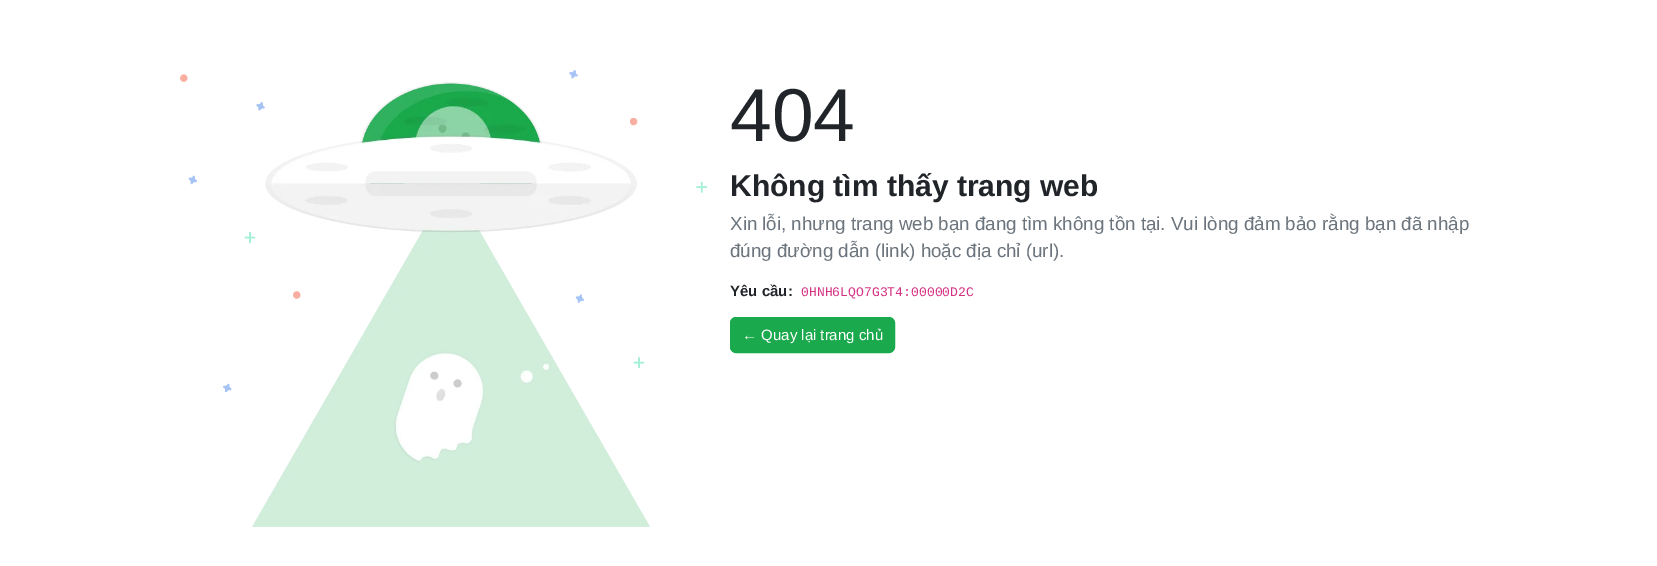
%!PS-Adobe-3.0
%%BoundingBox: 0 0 1657 566
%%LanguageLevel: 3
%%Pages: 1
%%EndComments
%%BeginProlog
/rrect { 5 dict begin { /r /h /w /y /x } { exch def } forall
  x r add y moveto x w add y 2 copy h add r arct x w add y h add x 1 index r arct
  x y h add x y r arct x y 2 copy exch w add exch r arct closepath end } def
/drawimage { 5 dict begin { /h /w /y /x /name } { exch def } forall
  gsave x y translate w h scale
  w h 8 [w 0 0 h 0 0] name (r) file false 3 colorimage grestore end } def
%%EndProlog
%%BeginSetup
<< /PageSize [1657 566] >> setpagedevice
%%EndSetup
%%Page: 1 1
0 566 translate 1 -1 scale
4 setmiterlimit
1 setgray
0 0 1657 566 rectfill
(images/1.raw) 180 70 527 457 drawimage
0.102 0.663 0.298 setrgbcolor
730.5 317.5 164 35 5.5 rrect gsave fill grestore
stroke
/LiberationSans-Regular [75 0 0 -75 0 0] selectfont
0.129 0.145 0.161 setrgbcolor
730 141 moveto (404) show
/LiberationSans-Bold [30 0 0 -30 0 0] selectfont
730 196 moveto (Không tìm thấy trang web) show
/LiberationSans-Regular [18.75 0 0 -18.75 0 0] selectfont
0.424 0.459 0.49 setrgbcolor
730 230 moveto (Xin lỗi, nhưng trang web bạn đang tìm không tồn tại. Vui lòng đảm bảo rằng bạn đã nhập) show
730 257 moveto (đúng đường dẫn \(link\) hoặc địa chỉ \(url\).) show
/LiberationSans-Bold [15 0 0 -15 0 0] selectfont
0.129 0.145 0.161 setrgbcolor
730 296 moveto (Yêu cầu:) show
/LiberationMono-Regular [13.1 0 0 -13.1 0 0] selectfont
0.839 0.2 0.518 setrgbcolor
801 296 moveto (0HNH6LQO7G3T4:00000D2C) show
/LiberationSans-Regular [15 0 0 -15 0 0] selectfont
1 setgray
742 340 moveto (← Quay lại trang chủ) show
showpage
%%EOF
